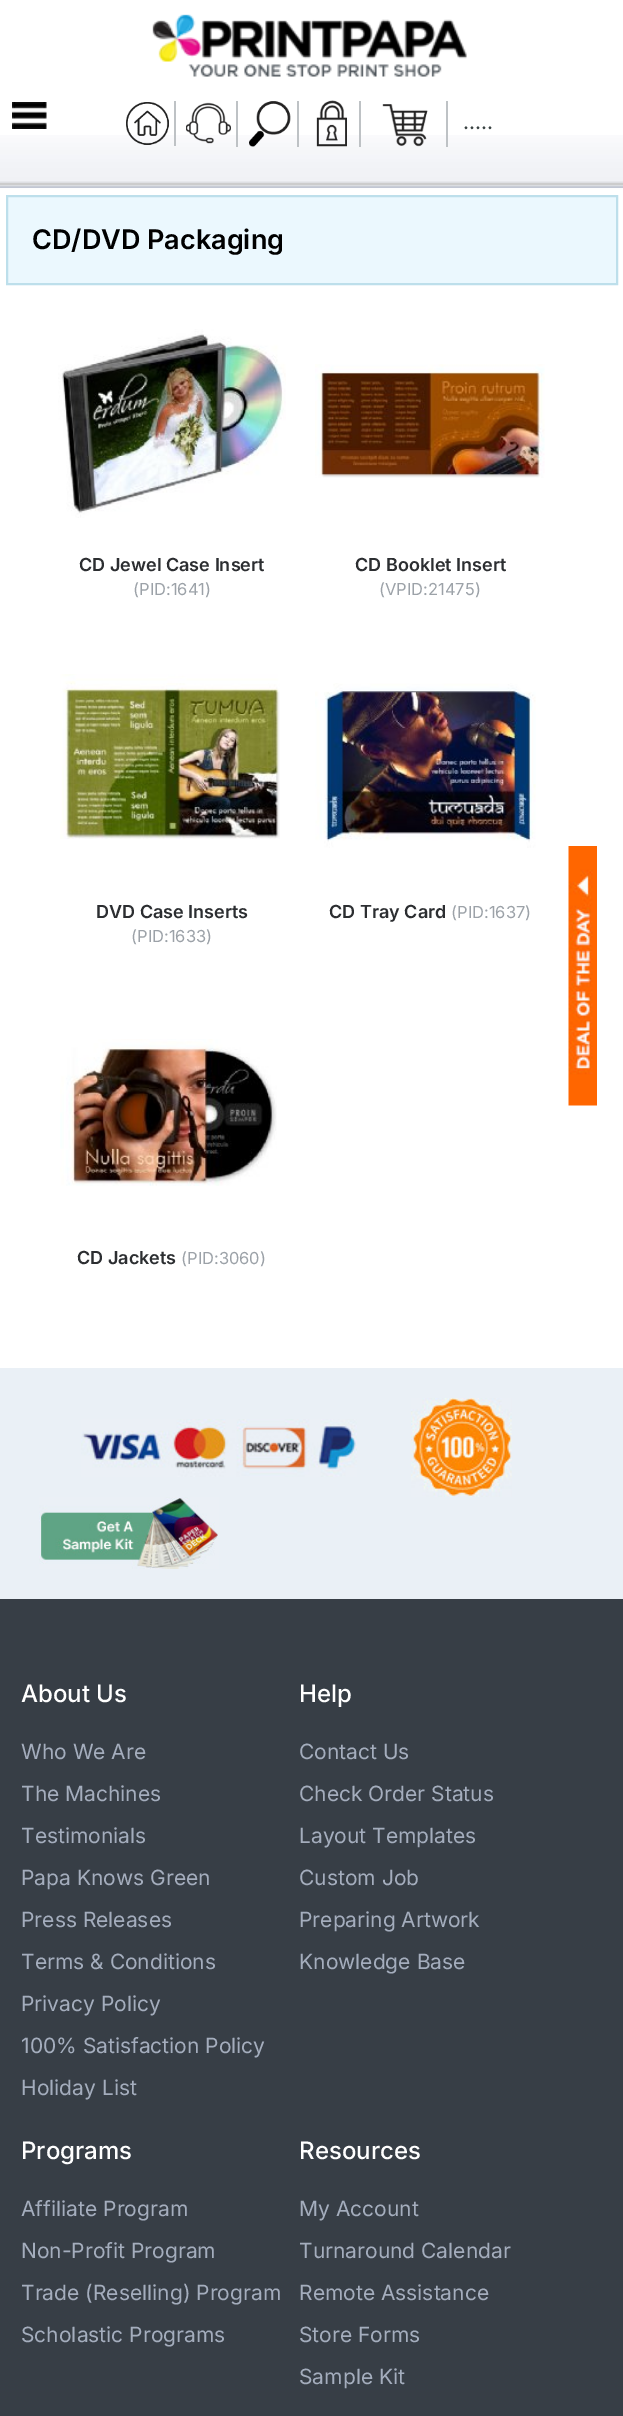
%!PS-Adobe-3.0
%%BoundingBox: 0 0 623 2416
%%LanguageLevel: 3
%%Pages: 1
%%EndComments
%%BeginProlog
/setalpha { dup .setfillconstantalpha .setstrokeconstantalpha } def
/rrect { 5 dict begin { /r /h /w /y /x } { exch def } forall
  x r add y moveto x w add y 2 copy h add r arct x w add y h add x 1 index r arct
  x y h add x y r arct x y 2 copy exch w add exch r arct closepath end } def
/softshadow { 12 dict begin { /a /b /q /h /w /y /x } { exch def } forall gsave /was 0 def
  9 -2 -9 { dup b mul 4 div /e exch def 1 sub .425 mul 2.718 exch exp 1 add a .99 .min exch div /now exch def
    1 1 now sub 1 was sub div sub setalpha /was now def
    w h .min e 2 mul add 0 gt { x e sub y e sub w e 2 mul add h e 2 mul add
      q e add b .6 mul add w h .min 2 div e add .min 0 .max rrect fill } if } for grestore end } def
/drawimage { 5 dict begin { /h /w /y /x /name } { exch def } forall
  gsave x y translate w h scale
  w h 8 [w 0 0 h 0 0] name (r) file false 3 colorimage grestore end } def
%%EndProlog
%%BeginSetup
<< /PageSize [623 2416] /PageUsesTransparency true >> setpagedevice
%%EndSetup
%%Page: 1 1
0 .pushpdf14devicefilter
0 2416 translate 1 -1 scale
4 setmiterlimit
1 setgray
0 0 623 2416 rectfill
0.843 0.863 0.914 setrgbcolor
0 185 623 1 rectfill
0.733 0.757 0.824 setrgbcolor
0 186 623 2 rectfill
0.859 setgray
-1 -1 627 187 0 1.5 1 softshadow
1 setgray
0 0 623 135 rectfill
(images/1.raw) 0 135 623 48 drawimage
0.8 setgray
0 183 623 2 rectfill
(images/2.raw) 152 14 315 63 drawimage
(images/3.raw) 12 102 35 27 drawimage
0.745 0.761 0.773 setrgbcolor
174 101 2 45 rectfill
(images/4.raw) 126 102 43 43 drawimage
236 101 2 46 rectfill
(images/5.raw) 186 102 45 42 drawimage
297 101 2 46 rectfill
(images/6.raw) 249 101 42 46 drawimage
359 101 2 46 rectfill
(images/7.raw) 316 100 31 47 drawimage
446 101 2 46 rectfill
(images/8.raw) 382 104 46 43 drawimage
0.922 0.973 0.996 setrgbcolor
newpath 7 196 moveto 617 196 lineto 617 284 lineto 7 284 lineto closepath gsave fill grestore
0.741 0.875 0.922 setrgbcolor
2 setlinewidth
stroke
(images/9.raw) 58 329 228 189 drawimage
(images/10.raw) 315 364 230 114 drawimage
(images/11.raw) 60 674 220 165 drawimage
(images/12.raw) 315 683 221 165 drawimage
(images/13.raw) 60 1039 217 147 drawimage
0.918 0.941 0.965 setrgbcolor
0 1368 623 231 rectfill
(images/14.raw) 81 1419 276 58 drawimage
(images/15.raw) 411 1398 101 99 drawimage
(images/16.raw) 39 1497 180 72 drawimage
0.216 0.243 0.275 setrgbcolor
0 1599 623 817 rectfill
(images/17.raw) 568 846 29 260 drawimage
/Inter-Regular [21 0 0 -21 0 0] selectfont
0.224 0.259 0.259 setrgbcolor
463 129 moveto (.....) show
/Inter-SemiBold [27 0 0 -27 0 0] selectfont
0 setgray
32 249 moveto (CD/DVD Packaging) show
/Inter-SemiBold [18 0 0 -18 0 0] selectfont
0.173 0.18 0.192 setrgbcolor
79 571 moveto (CD Jewel Case Insert) show
/Inter-Regular [16.5 0 0 -16.5 0 0] selectfont
0.612 0.635 0.659 setrgbcolor
133 595 moveto (\(PID:1641\)) show
/Inter-SemiBold [18 0 0 -18 0 0] selectfont
0.173 0.18 0.192 setrgbcolor
355 571 moveto (CD Booklet Insert) show
/Inter-Regular [16.5 0 0 -16.5 0 0] selectfont
0.612 0.635 0.659 setrgbcolor
379 595 moveto (\(VPID:21475\)) show
/Inter-SemiBold [18 0 0 -18 0 0] selectfont
0.173 0.18 0.192 setrgbcolor
96 918 moveto (DVD Case Inserts) show
/Inter-Regular [16.5 0 0 -16.5 0 0] selectfont
0.612 0.635 0.659 setrgbcolor
131 942 moveto (\(PID:1633\)) show
/Inter-SemiBold [18 0 0 -18 0 0] selectfont
0.173 0.18 0.192 setrgbcolor
329 918 moveto (CD Tray Card) show
/Inter-Regular [16.5 0 0 -16.5 0 0] selectfont
0.612 0.635 0.659 setrgbcolor
451 918 moveto (\(PID:1637\)) show
/Inter-SemiBold [18 0 0 -18 0 0] selectfont
0.173 0.18 0.192 setrgbcolor
77 1264 moveto (CD Jackets) show
/Inter-Regular [16.5 0 0 -16.5 0 0] selectfont
0.612 0.635 0.659 setrgbcolor
181 1264 moveto (\(PID:3060\)) show
/Inter-Medium [24 0 0 -24 0 0] selectfont
1 setgray
21 1702 moveto (About Us) show
/Inter-Regular [21 0 0 -21 0 0] selectfont
0.643 0.678 0.741 setrgbcolor
21 1759 moveto (Who We Are) show
21 1801 moveto (The Machines) show
21 1843 moveto (Testimonials) show
21 1885 moveto (Papa Knows Green) show
21 1927 moveto (Press Releases) show
21 1969 moveto (Terms & Conditions) show
21 2011 moveto (Privacy Policy) show
21 2053 moveto (100% Satisfaction Policy) show
21 2095 moveto (Holiday List) show
/Inter-Medium [24 0 0 -24 0 0] selectfont
1 setgray
299 1702 moveto (Help) show
/Inter-Regular [21 0 0 -21 0 0] selectfont
0.643 0.678 0.741 setrgbcolor
299 1759 moveto (Contact Us) show
299 1801 moveto (Check Order Status) show
299 1843 moveto (Layout Templates) show
299 1885 moveto (Custom Job) show
299 1927 moveto (Preparing Artwork) show
299 1969 moveto (Knowledge Base) show
/Inter-Medium [24 0 0 -24 0 0] selectfont
1 setgray
21 2159 moveto (Programs) show
/Inter-Regular [21 0 0 -21 0 0] selectfont
0.643 0.678 0.741 setrgbcolor
21 2216 moveto (Affiliate Program) show
21 2258 moveto (Non-Profit Program) show
21 2300 moveto (Trade \(Reselling\) Program) show
21 2342 moveto (Scholastic Programs) show
/Inter-Medium [24 0 0 -24 0 0] selectfont
1 setgray
299 2159 moveto (Resources) show
/Inter-Regular [21 0 0 -21 0 0] selectfont
0.643 0.678 0.741 setrgbcolor
299 2216 moveto (My Account) show
299 2258 moveto (Turnaround Calendar) show
299 2300 moveto (Remote Assistance) show
299 2342 moveto (Store Forms) show
299 2384 moveto (Sample Kit) show
.poppdf14devicefilter showpage
%%EOF
